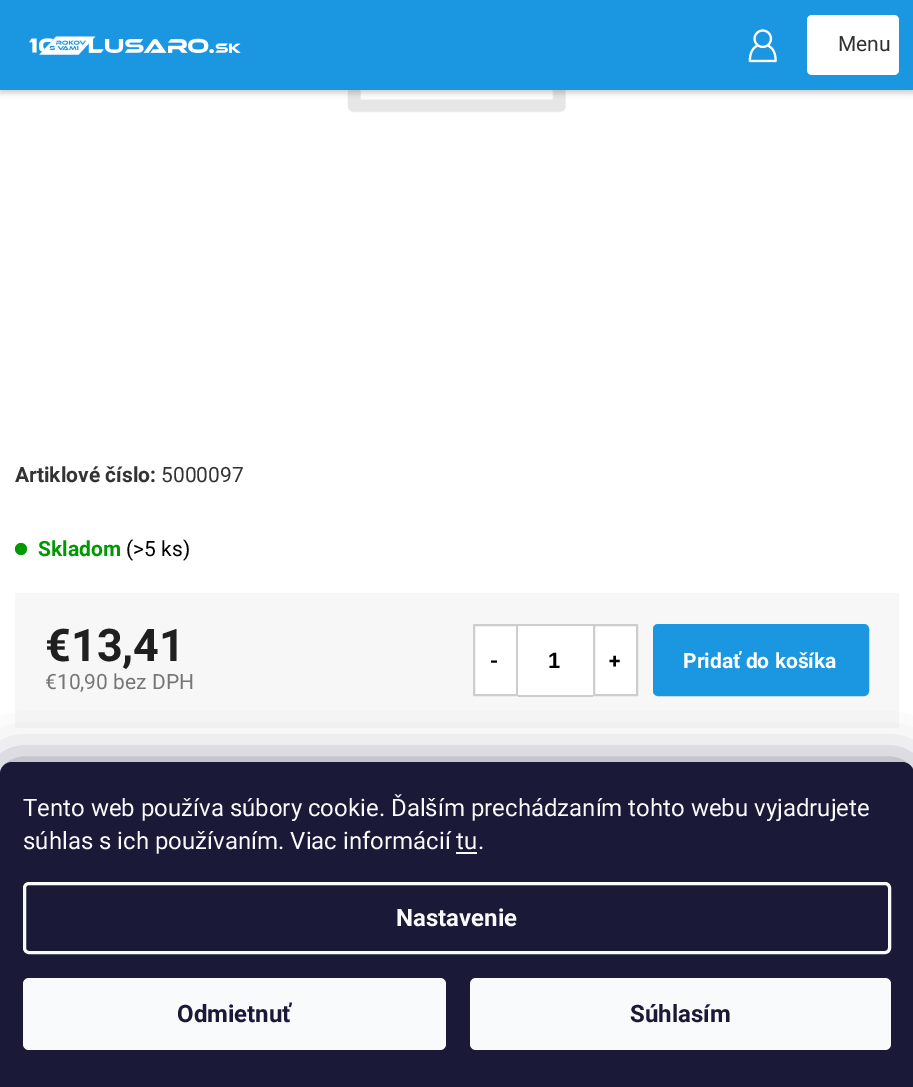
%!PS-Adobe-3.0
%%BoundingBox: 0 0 913 1087
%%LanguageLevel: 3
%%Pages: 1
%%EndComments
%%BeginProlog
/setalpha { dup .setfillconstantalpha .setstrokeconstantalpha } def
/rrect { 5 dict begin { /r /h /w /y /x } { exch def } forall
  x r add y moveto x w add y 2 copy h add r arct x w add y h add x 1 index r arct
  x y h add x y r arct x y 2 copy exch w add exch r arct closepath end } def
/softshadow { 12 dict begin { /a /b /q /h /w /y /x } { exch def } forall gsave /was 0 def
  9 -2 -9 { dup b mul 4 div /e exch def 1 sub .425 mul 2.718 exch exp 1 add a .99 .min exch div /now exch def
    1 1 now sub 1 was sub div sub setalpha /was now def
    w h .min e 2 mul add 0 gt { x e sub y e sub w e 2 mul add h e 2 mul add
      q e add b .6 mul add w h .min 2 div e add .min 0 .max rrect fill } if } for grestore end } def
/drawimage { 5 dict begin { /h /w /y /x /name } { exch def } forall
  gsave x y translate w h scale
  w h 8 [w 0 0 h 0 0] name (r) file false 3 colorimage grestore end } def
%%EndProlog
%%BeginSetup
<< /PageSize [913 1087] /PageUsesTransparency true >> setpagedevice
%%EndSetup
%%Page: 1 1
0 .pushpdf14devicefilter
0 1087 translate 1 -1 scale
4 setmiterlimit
1 setgray
0 0 913 1087 rectfill
(images/3.raw) 347 90 219 23 drawimage
0 setgray
0 3 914 90 0 3 0.2 softshadow
0.106 0.592 0.882 setrgbcolor
0 0 913 90 rectfill
(images/1.raw) 29 36 212 19 drawimage
(images/2.raw) 748 29 29 34 drawimage
1 setgray
807 15 92 60 5 rrect fill
0 0.6 0.004 setrgbcolor
newpath 21 549 6 0 360 arc closepath fill
0.969 setgray
15 593 884 135 rectfill
1 setgray
newpath 474 625 moveto 517 625 lineto 517 695 lineto 474 695 lineto closepath gsave fill grestore
0.804 setgray
2 setlinewidth
stroke
1 setgray
518 626 75 69 rectfill
0.804 setgray
518 624 75 2 rectfill
518 695 75 2 rectfill
1 setgray
newpath 594 625 moveto 637 625 lineto 637 695 lineto 594 695 lineto closepath gsave fill grestore
0.804 setgray
stroke
0.106 0.592 0.882 setrgbcolor
654 625 214 70 4 rrect gsave fill grestore
stroke
0.106 0.098 0.224 setrgbcolor
0 762 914 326 12 22.5 0.5 softshadow
0.102 0.098 0.216 setrgbcolor
newpath 12 762 moveto 902 762 lineto 908.5 762 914 767.5 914 774 curveto 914 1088 lineto 0 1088 lineto 0 774 lineto 0 767.5 5.5 762 12 762 curveto closepath fill
0.973 0.98 0.984 setrgbcolor
456 852 21 2 rectfill
3 setlinewidth
24.5 883.5 865 69 4.5 rrect stroke
23 978 423 72 6 rrect fill
470 978 421 72 6 rrect fill
/Roboto-Regular [21 0 0 -21 0 0] selectfont
0.2 setgray
838 51 moveto (Menu) show
/Roboto-Bold [21 0 0 -21 0 0] selectfont
15 482 moveto (Artiklové číslo:) show
/Roboto-Regular [21 0 0 -21 0 0] selectfont
161 482 moveto (5000097) show
/Roboto-Bold [21 0 0 -21 0 0] selectfont
0 0.6 0.004 setrgbcolor
38 556 moveto (Skladom) show
/Roboto-Regular [21 0 0 -21 0 0] selectfont
0 setgray
126 556 moveto (\(>5 ks\)) show
/Roboto-Bold [45 0 0 -45 0 0] selectfont
0.122 setgray
45 661 moveto (€13,41) show
/Roboto-Regular [21 0 0 -21 0 0] selectfont
0.463 setgray
45 689 moveto (€10,90 bez DPH) show
/Roboto-Bold [21 0 0 -21 0 0] selectfont
0 setgray
490 668 moveto (-) show
/LiberationSans-Bold [22 0 0 -22 0 0] selectfont
548 668 moveto (1) show
/Roboto-Bold [21 0 0 -21 0 0] selectfont
609 668 moveto (+) show
1 setgray
683 668 moveto (Pridať do košíka) show
/Roboto-Regular [24 0 0 -24 0 0] selectfont
0.973 0.98 0.984 setrgbcolor
23 816 moveto (Tento web používa súbory cookie. Ďalším prechádzaním tohto webu vyjadrujete) show
23 849 moveto (súhlas s ich používaním. Viac informácií tu.) show
/Roboto-Bold [24 0 0 -24 0 0] selectfont
396 926 moveto (Nastavenie) show
0.102 0.098 0.216 setrgbcolor
177 1022 moveto (Odmietnuť) show
630 1022 moveto (Súhlasím) show
.poppdf14devicefilter showpage
%%EOF
